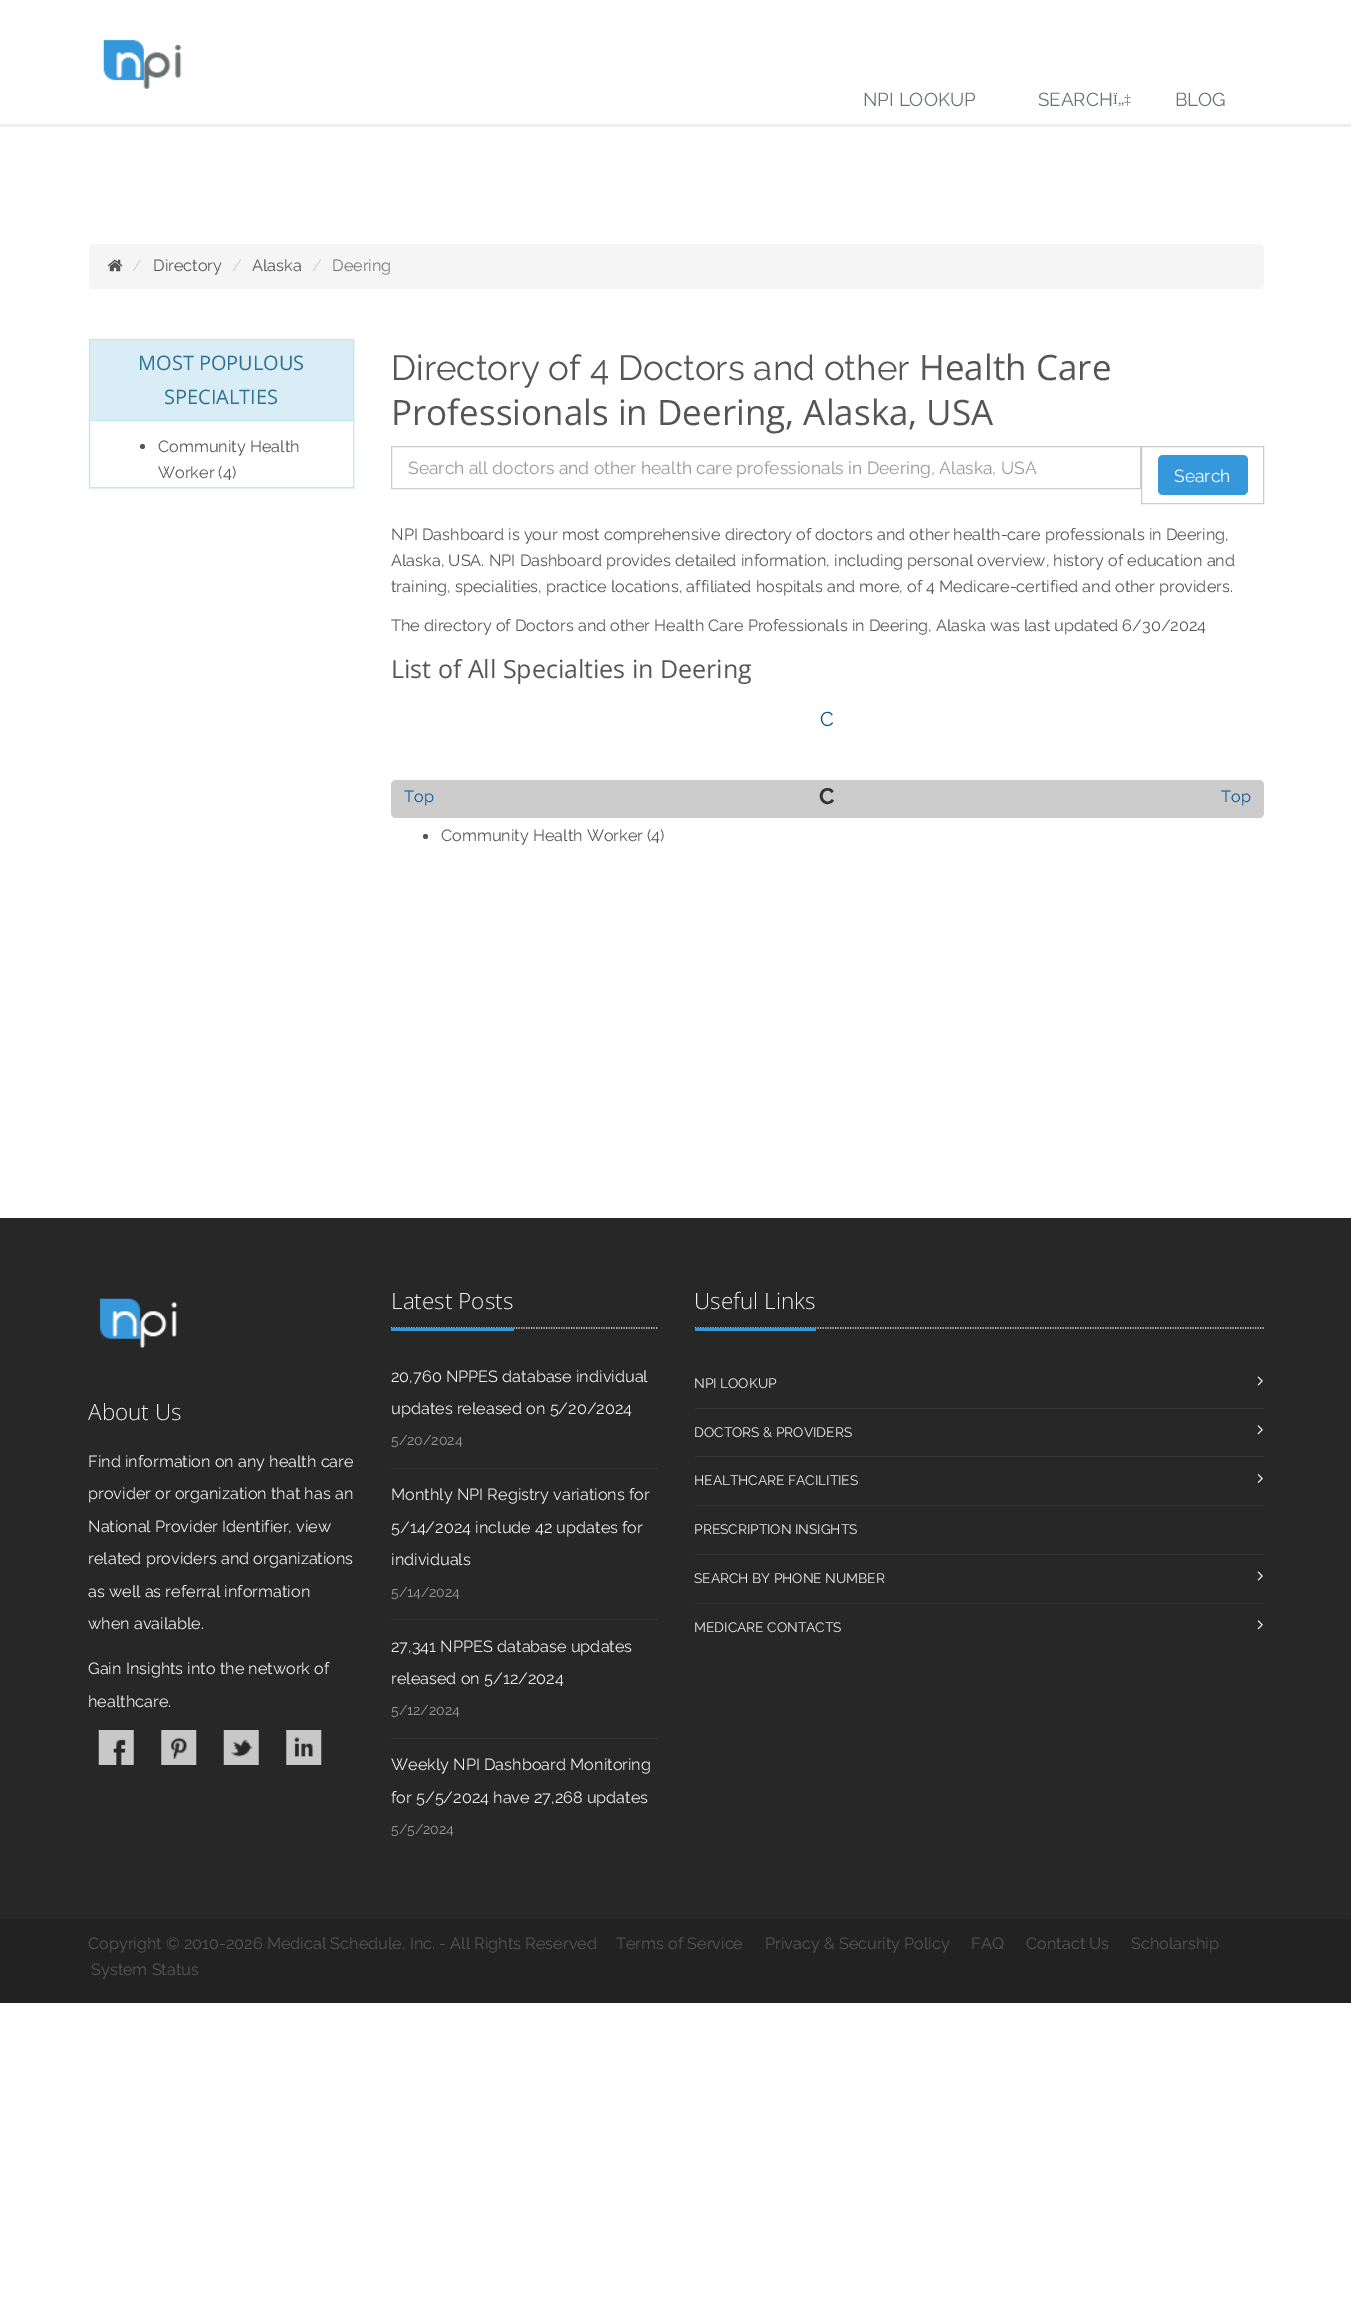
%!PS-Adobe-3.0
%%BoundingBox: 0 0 1351 2310
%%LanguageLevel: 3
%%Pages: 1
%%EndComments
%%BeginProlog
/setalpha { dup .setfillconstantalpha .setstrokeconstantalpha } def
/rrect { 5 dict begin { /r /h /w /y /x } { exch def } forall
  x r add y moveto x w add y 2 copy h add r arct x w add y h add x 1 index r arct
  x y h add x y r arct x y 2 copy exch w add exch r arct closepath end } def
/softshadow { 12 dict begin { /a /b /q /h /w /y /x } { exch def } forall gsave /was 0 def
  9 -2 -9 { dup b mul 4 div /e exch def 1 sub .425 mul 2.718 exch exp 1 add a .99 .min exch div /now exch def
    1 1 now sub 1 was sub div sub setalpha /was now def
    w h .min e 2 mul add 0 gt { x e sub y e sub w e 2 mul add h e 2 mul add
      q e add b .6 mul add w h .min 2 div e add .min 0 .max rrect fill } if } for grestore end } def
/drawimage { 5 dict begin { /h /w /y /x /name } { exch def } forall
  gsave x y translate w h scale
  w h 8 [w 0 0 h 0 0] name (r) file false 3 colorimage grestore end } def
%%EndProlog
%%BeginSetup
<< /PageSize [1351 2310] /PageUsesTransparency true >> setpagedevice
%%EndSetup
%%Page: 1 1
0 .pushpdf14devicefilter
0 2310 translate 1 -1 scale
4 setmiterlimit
1 setgray
0 0 1351 2310 rectfill
0.933 setgray
0 124 1351 3 rectfill
(images/1.raw) 103 39 79 50 drawimage
0.961 setgray
89 244 1175 45 5 rrect fill
(images/2.raw) 107 259 16 13 drawimage
0 setgray
89 340 265 149 0 0.5 0.05 softshadow
1 setgray
90 421 263 66 rectfill
0.737 0.91 0.945 setrgbcolor
89.5 339.5 264 148 rectstroke
0.851 0.929 0.969 setrgbcolor
90 340 263 80 rectfill
0.737 0.91 0.945 setrgbcolor
90 420 263 1 rectfill
0.333 setgray
newpath 142.5 446.5 2.5 0 360 arc closepath fill
0.8 setgray
391.5 446.5 749 42 rectstroke
1141.5 446.5 122 57 rectstroke
0.204 0.596 0.859 setrgbcolor
1158 455 90 40 5 rrect fill
0.8 setgray
391 780 873 38 5 rrect fill
0.333 setgray
newpath 425.5 836.5 2.5 0 360 arc closepath fill
0.153 setgray
0 1218 1351 701 rectfill
(images/3.raw) 99 1298 79 50 drawimage
(images/4.raw) 98 1730 36 35 drawimage
(images/5.raw) 161 1730 36 35 drawimage
(images/6.raw) 223 1730 36 35 drawimage
(images/7.raw) 286 1730 36 35 drawimage
0.894 0.914 0.941 setrgbcolor
1.2 setlinewidth
[1.25 1.25] 0 setdash
newpath 391 1328 moveto 657.5 1328 lineto stroke
0.204 0.596 0.859 setrgbcolor
391 1328 123 3 rectfill
0.208 setgray
391 1468 267 1 rectfill
391 1619 267 1 rectfill
391 1738 267 1 rectfill
0.894 0.914 0.941 setrgbcolor
newpath 695 1328 moveto 1264 1328 lineto stroke
0.204 0.596 0.859 setrgbcolor
695 1328 121 3 rectfill
(images/8.raw) 1257 1376 6 10 drawimage
0.208 setgray
695 1408 569 1 rectfill
(images/9.raw) 1257 1425 6 10 drawimage
695 1456 569 1 rectfill
(images/10.raw) 1257 1474 6 9 drawimage
695 1505 569 1 rectfill
695 1554 569 1 rectfill
(images/8.raw) 1257 1571 6 10 drawimage
695 1603 569 1 rectfill
(images/9.raw) 1257 1620 6 10 drawimage
0.133 setgray
0 1919 1351 84 rectfill
/Raleway-Regular [18.75 0 0 -18.75 0 0] selectfont
0.408 0.439 0.455 setrgbcolor
863 106 moveto (NPI LOOKUP) show
1038 106 moveto (SEARCH) show
/LiberationSerif-Regular [13.75 0 0 -13.75 0 0] selectfont
1113 104 moveto (Ï„‡) show
/Raleway-Regular [18.75 0 0 -18.75 0 0] selectfont
1175 106 moveto (BLOG) show
/Raleway-Regular [16.25 0 0 -16.25 0 0] selectfont
0.8 setgray
132 271 moveto (/) show
0.333 setgray
153 271 moveto (Directory) show
0.8 setgray
232 271 moveto (/) show
0.333 setgray
252 271 moveto (Alaska) show
0.8 setgray
312 271 moveto (/) show
0.467 setgray
332 271 moveto (Deering) show
/OpenSans-Regular [20 0 0 -20 0 0] selectfont
0.192 0.439 0.561 setrgbcolor
138 370 moveto (MOST POPULOUS) show
164 404 moveto (SPECIALTIES) show
/Raleway-Regular [16.25 0 0 -16.25 0 0] selectfont
0.333 setgray
158 452 moveto (Community Health) show
158 478 moveto (Worker \(4\)) show
/Raleway-Regular [35 0 0 -35 0 0] selectfont
391 380 moveto (Directory of 4 Doctors and other) show
/OpenSans-Regular [35 0 0 -35 0 0] selectfont
919 380 moveto (Health Care) show
391 425 moveto (Professionals in Deering, Alaska, USA) show
/Raleway-Regular [17.5 0 0 -17.5 0 0] selectfont
0.6 setgray
408 474 moveto (Search all doctors and other health care professionals in Deering, Alaska, USA) show
1 setgray
1174 482 moveto (Search) show
/Raleway-Regular [16.25 0 0 -16.25 0 0] selectfont
0.333 setgray
391 540 moveto (NPI Dashboard is your most comprehensive directory of doctors and other health-care professionals in Deering,) show
391 566 moveto (Alaska, USA. NPI Dashboard provides detailed information, including personal overview, history of education and) show
391 592 moveto (training, specialities, practice locations, affiliated hospitals and more, of 4 Medicare-certified and other providers.) show
391 631 moveto (The directory of Doctors and other Health Care Professionals in Deering, Alaska was last updated 6/30/2024) show
/OpenSans-Regular [25 0 0 -25 0 0] selectfont
391 678 moveto (List of All Specialties in Deering) show
/Raleway-Regular [20 0 0 -20 0 0] selectfont
0.035 0.325 0.604 setrgbcolor
820 726 moveto (C) show
/Raleway-Regular [16.25 0 0 -16.25 0 0] selectfont
404 802 moveto (Top) show
/Raleway-Bold [22.5 0 0 -22.5 0 0] selectfont
0.2 setgray
819 804 moveto (C) show
/Raleway-Regular [16.25 0 0 -16.25 0 0] selectfont
0.035 0.325 0.604 setrgbcolor
1221 802 moveto (Top) show
0.333 setgray
441 841 moveto (Community Health Worker \(4\)) show
/OpenSans-Light [22.5 0 0 -22.5 0 0] selectfont
0.933 setgray
88 1420 moveto (About Us) show
/Raleway-Regular [16.25 0 0 -16.25 0 0] selectfont
88 1467 moveto (Find information on any health care) show
88 1499 moveto (provider or organization that has an) show
88 1532 moveto (National Provider Identifier, view) show
88 1564 moveto (related providers and organizations) show
88 1597 moveto (as well as referral information) show
88 1629 moveto (when available.) show
88 1674 moveto (Gain Insights into the network of) show
88 1707 moveto (healthcare.) show
/OpenSans-Light [22.5 0 0 -22.5 0 0] selectfont
391 1309 moveto (Latest Posts) show
/Raleway-Regular [16.25 0 0 -16.25 0 0] selectfont
391 1382 moveto (20,760 NPPES database individual) show
391 1414 moveto (updates released on 5/20/2024) show
/Raleway-Regular [14 0 0 -14 0 0] selectfont
0.6 setgray
391 1445 moveto (5/20/2024) show
/Raleway-Regular [16.25 0 0 -16.25 0 0] selectfont
0.933 setgray
391 1500 moveto (Monthly NPI Registry variations for) show
391 1533 moveto (5/14/2024 include 42 updates for) show
391 1565 moveto (individuals) show
/Raleway-Regular [14 0 0 -14 0 0] selectfont
0.6 setgray
391 1597 moveto (5/14/2024) show
/Raleway-Regular [16.25 0 0 -16.25 0 0] selectfont
0.933 setgray
391 1652 moveto (27,341 NPPES database updates) show
391 1684 moveto (released on 5/12/2024) show
/Raleway-Regular [14 0 0 -14 0 0] selectfont
0.6 setgray
391 1715 moveto (5/12/2024) show
/Raleway-Regular [16.25 0 0 -16.25 0 0] selectfont
0.933 setgray
391 1770 moveto (Weekly NPI Dashboard Monitoring) show
391 1803 moveto (for 5/5/2024 have 27,268 updates) show
/Raleway-Regular [14 0 0 -14 0 0] selectfont
0.6 setgray
391 1834 moveto (5/5/2024) show
/OpenSans-Light [22.5 0 0 -22.5 0 0] selectfont
0.933 setgray
694 1309 moveto (Useful Links) show
/Raleway-Regular [13.75 0 0 -13.75 0 0] selectfont
694 1388 moveto (NPI LOOKUP) show
694 1437 moveto (DOCTORS & PROVIDERS) show
694 1485 moveto (HEALTHCARE FACILITIES) show
694 1534 moveto (PRESCRIPTION INSIGHTS) show
694 1583 moveto (SEARCH BY PHONE NUMBER) show
694 1632 moveto (MEDICARE CONTACTS) show
/Raleway-Regular [16.25 0 0 -16.25 0 0] selectfont
0.333 setgray
88 1949 moveto (Copyright © 2010-2026 Medical Schedule, Inc. - All Rights Reserved) show
616 1949 moveto (Terms of Service) show
765 1949 moveto (Privacy & Security Policy) show
971 1949 moveto (FAQ) show
1026 1949 moveto (Contact Us) show
1131 1949 moveto (Scholarship) show
91 1975 moveto (System Status) show
.poppdf14devicefilter showpage
%%EOF
